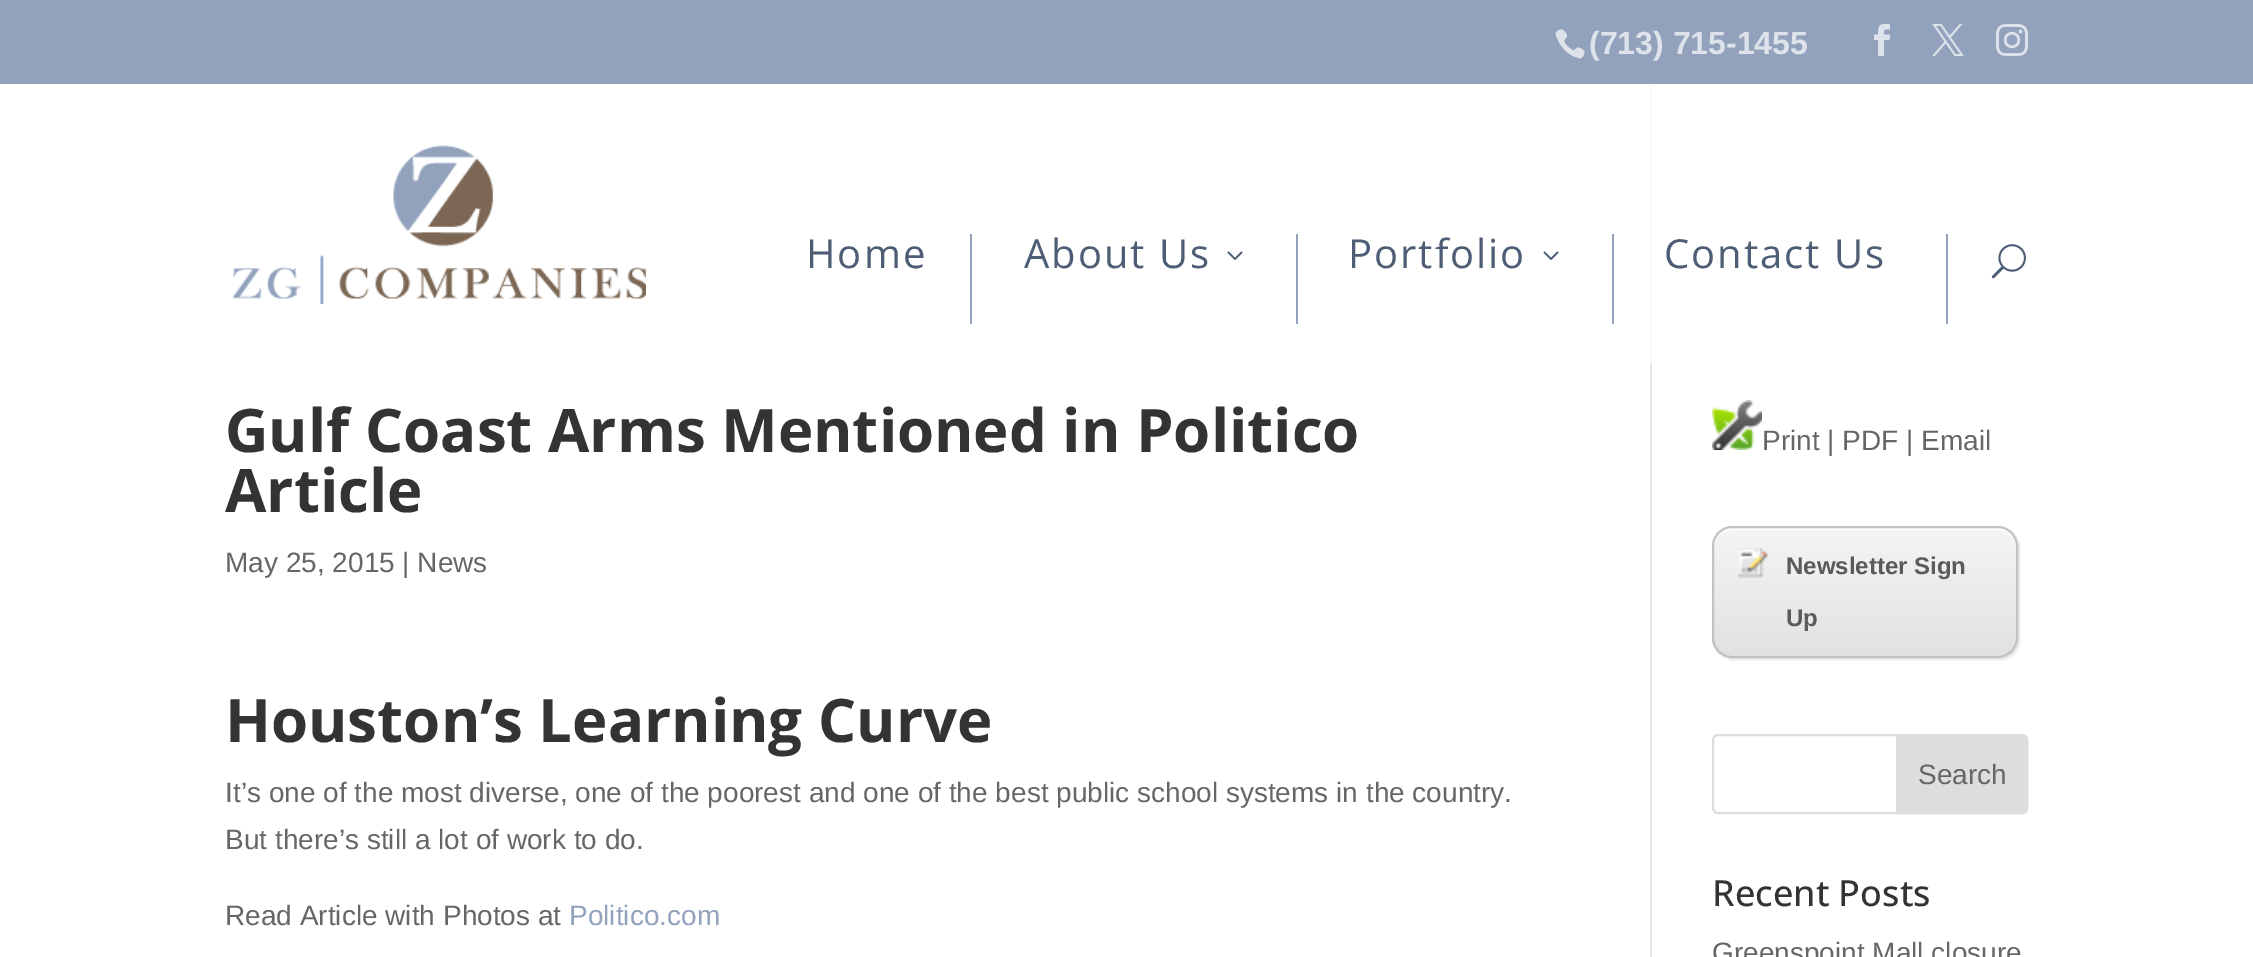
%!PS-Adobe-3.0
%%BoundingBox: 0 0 2253 957
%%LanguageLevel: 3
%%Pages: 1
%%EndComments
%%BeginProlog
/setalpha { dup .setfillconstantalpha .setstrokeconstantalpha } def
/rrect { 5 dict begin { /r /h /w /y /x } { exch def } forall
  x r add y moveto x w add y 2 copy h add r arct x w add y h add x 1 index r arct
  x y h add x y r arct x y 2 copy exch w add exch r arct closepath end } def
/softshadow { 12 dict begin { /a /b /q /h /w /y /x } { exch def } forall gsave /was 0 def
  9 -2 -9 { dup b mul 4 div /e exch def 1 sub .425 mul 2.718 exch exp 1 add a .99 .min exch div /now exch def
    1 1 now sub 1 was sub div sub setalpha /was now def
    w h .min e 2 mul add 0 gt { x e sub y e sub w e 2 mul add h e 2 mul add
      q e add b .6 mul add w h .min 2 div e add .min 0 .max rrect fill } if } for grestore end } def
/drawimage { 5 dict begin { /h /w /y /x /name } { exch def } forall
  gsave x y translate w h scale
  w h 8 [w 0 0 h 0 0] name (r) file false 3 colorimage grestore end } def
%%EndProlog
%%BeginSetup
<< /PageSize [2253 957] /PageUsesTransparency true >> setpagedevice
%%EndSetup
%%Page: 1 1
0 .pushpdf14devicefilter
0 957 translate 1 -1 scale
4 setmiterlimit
1 setgray
0 0 2253 957 rectfill
0.573 0.635 0.741 setrgbcolor
0 0 2253 84 rectfill
(images/1.raw) 1555 29 30 30 drawimage
(images/2.raw) 1874 24 16 32 drawimage
(images/3.raw) 1932 24 32 32 drawimage
(images/4.raw) 1996 24 32 32 drawimage
(images/5.raw) 232 145 414 159 drawimage
970 234 2 90 rectfill
1296 234 2 90 rectfill
(images/6.raw) 1227 251 16 9 drawimage
1612 234 2 90 rectfill
(images/6.raw) 1543 251 16 9 drawimage
1946 234 2 90 rectfill
(images/7.raw) 1991 244 35 35 drawimage
0.886 setgray
1650 364 2 593 rectfill
0.976 setgray
1650 84 2 280 rectfill
(images/8.raw) 1712 400 50 50 drawimage
0 setgray
1714 528 306 132 20 1 0.1 softshadow
gsave
1712 526 306 132 20 rrect clip newpath
gsave newpath 1712 528 moveto 2018 528 lineto 2018 656 lineto 1712 656 lineto closepath clip newpath
<< /ShadingType 2 /ColorSpace /DeviceRGB /Coords [1865 528 1865 656] /Extend [true true] /Function << /FunctionType 2 /Domain [0 1] /C0 [0.961 0.961 0.961] /C1 [0.882 0.882 0.882] /N 1 >> >> shfill grestore
grestore
0.996 setgray
newpath 1732 530 moveto 1998 530 lineto 2008 530 2016 538 2016 548 curveto 2016 546 lineto 2016 536 2008 528 1998 528 curveto 1732 528 lineto 1722 528 1714 536 1714 546 curveto 1714 548 lineto 1714 538 1722 530 1732 530 curveto closepath fill
0.765 setgray
2 setlinewidth
1713 527 304 130 19 rrect stroke
(images/9.raw) 1738 548 30 30 drawimage
0.867 setgray
1713 735 314 78 5 rrect stroke
newpath 1897 735 moveto 2022 735 lineto 2025 735 2027 737 2027 740 curveto 2027 808 lineto 2027 811 2025 813 2022 813 curveto 1897 813 lineto closepath gsave fill grestore
stroke
/LiberationSans-Bold [32 0 0 -32 0 0] selectfont
0.871 0.89 0.922 setrgbcolor
1589 54 moveto (\(713\) 715-1455) show
/OpenSans-Regular [40 0 0 -40 0 0] selectfont
0.302 0.365 0.459 setrgbcolor
806 268 moveto 2 0 (Home) ashow
1024 268 moveto 2 0 (About Us) ashow
1348 268 moveto 2 0 (Portfolio) ashow
1664 268 moveto 2 0 (Contact Us) ashow
/OpenSans-Bold [60 0 0 -60 0 0] selectfont
0.2 setgray
225 452 moveto (Gulf Coast Arms Mentioned in Politico) show
225 512 moveto (Article) show
/LiberationSans-Regular [28 0 0 -28 0 0] selectfont
0.4 setgray
225 572 moveto (May 25, 2015 | News) show
/OpenSans-Bold [60 0 0 -60 0 0] selectfont
0.2 setgray
225 742 moveto (Houston’s Learning Curve) show
/LiberationSans-Regular [28 0 0 -28 0 0] selectfont
0.4 setgray
225 802 moveto (It’s one of the most diverse, one of the poorest and one of the best public school systems in the country.) show
225 849 moveto (But there’s still a lot of work to do.) show
225 925 moveto (Read Article with Photos at) show
0.573 0.635 0.741 setrgbcolor
569 925 moveto (Politico.com) show
0.4 setgray
1762 450 moveto (Print | PDF | Email) show
/LiberationSans-Bold [24 0 0 -24 0 0] selectfont
0.349 0.353 0.353 setrgbcolor
1786 574 moveto (Newsletter Sign) show
1786 626 moveto (Up) show
/LiberationSans-Regular [28 0 0 -28 0 0] selectfont
0.4 setgray
1918 784 moveto (Search) show
/OpenSans-Medium [36 0 0 -36 0 0] selectfont
0.2 setgray
1712 906 moveto (Recent Posts) show
/LiberationSans-Regular [28 0 0 -28 0 0] selectfont
0.4 setgray
1712 962 moveto (Greenspoint Mall closure) show
.poppdf14devicefilter showpage
%%EOF
